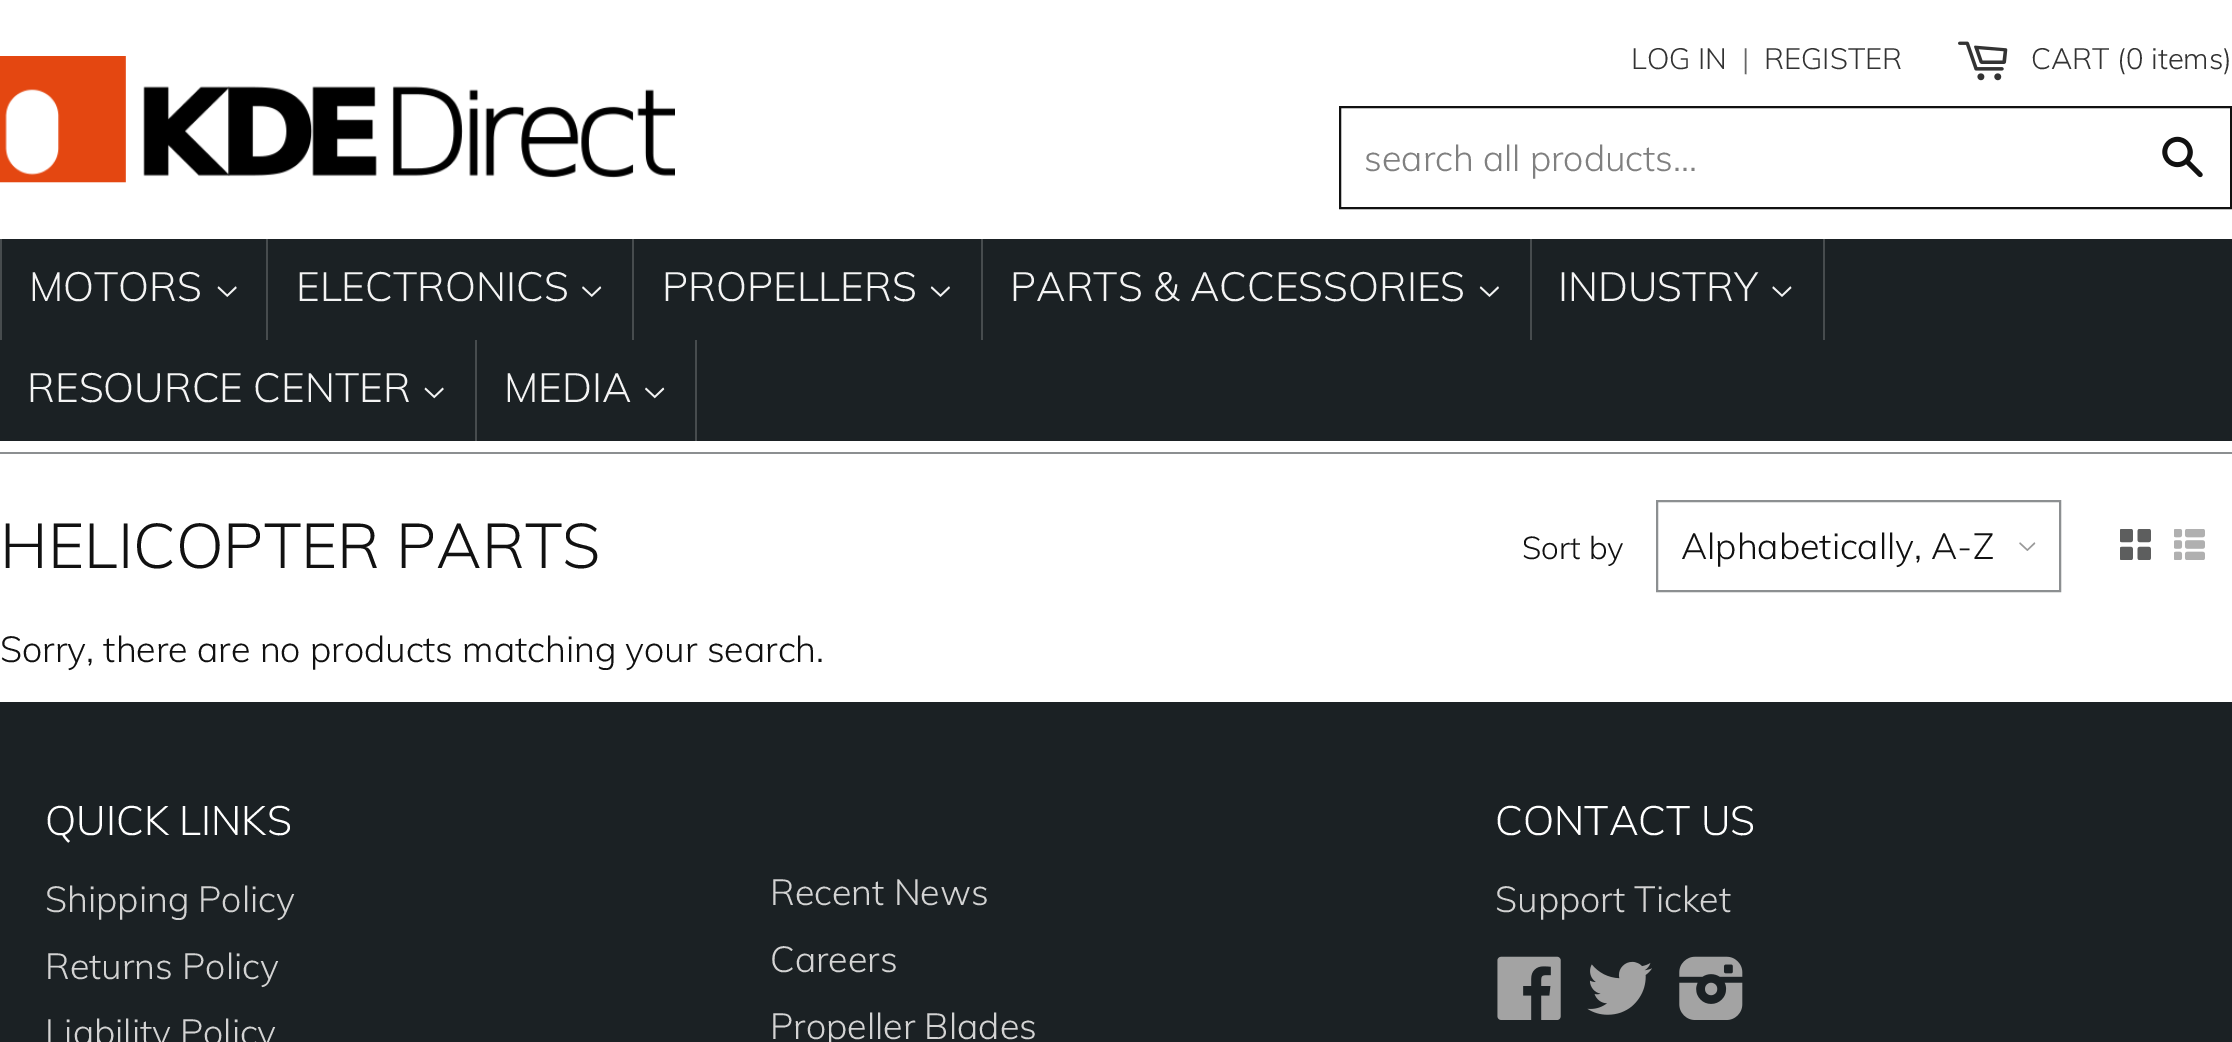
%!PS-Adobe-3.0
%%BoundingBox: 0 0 2232 1042
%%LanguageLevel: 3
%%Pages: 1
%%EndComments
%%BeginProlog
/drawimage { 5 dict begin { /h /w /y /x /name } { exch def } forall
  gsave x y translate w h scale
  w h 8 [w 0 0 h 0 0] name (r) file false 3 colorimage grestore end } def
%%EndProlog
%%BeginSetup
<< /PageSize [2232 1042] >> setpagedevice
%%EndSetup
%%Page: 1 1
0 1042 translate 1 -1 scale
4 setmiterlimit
1 setgray
0 0 2232 1042 rectfill
(images/1.raw) 0 56 675 127 drawimage
(images/2.raw) 1958 41 50 40 drawimage
0.067 setgray
2 setlinewidth
1340 107 891 101 rectstroke
(images/3.raw) 2162 136 41 42 drawimage
0.106 0.129 0.141 setrgbcolor
0 239 2232 202 rectfill
0.278 0.298 0.306 setrgbcolor
266 239 2 101 rectfill
0 239 2 101 rectfill
(images/4.raw) 217 286 20 11 drawimage
632 239 2 101 rectfill
(images/5.raw) 582 286 20 11 drawimage
981 239 2 101 rectfill
(images/6.raw) 930 286 20 11 drawimage
1530 239 2 101 rectfill
(images/6.raw) 1479 286 20 11 drawimage
1823 239 2 101 rectfill
(images/7.raw) 1772 286 20 11 drawimage
475 340 2 101 rectfill
(images/8.raw) 424 387 20 12 drawimage
695 340 2 101 rectfill
(images/9.raw) 645 387 20 12 drawimage
0.549 0.561 0.569 setrgbcolor
0 452 2232 2 rectfill
(images/10.raw) 2019 542 17 9 drawimage
1657 501 403 90 rectstroke
(images/11.raw) 2120 529 31 31 drawimage
(images/12.raw) 2174 529 31 31 drawimage
0.106 0.129 0.141 setrgbcolor
0 702 2232 340 rectfill
(images/13.raw) 1497 956 64 64 drawimage
(images/14.raw) 1587 961 65 54 drawimage
(images/15.raw) 1679 956 64 64 drawimage
/Muli-Light [29.25 0 0 -29.25 0 0] selectfont
0.2 setgray
1631 69 moveto (LOG IN) show
0.4 setgray
1742 69 moveto (|) show
0.2 setgray
1764 69 moveto (REGISTER) show
2031 69 moveto (CART \(0 items\)) show
/Muli-Light [36 0 0 -36 0 0] selectfont
0.502 setgray
1364 171 moveto (search all products...) show
/Muli-Light [40.5 0 0 -40.5 0 0] selectfont
0.957 setgray
29 301 moveto (MOTORS) show
296 301 moveto (ELECTRONICS) show
662 301 moveto (PROPELLERS) show
1010 301 moveto (PARTS & ACCESSORIES) show
1558 301 moveto (INDUSTRY) show
27 402 moveto (RESOURCE CENTER) show
504 402 moveto (MEDIA) show
/Muli-Light [62.4 0 0 -62.4 0 0] selectfont
0.067 setgray
0 568 moveto (HELICOPTER PARTS) show
/Muli-Light [31.5 0 0 -31.5 0 0] selectfont
1522 559 moveto (Sort by) show
/Muli-Light [36 0 0 -36 0 0] selectfont
1681 559 moveto (Alphabetically, A-Z) show
0 662 moveto (Sorry, there are no products matching your search.) show
/Muli-Light [40.75 0 0 -40.75 0 0] selectfont
1 setgray
45 835 moveto (QUICK LINKS) show
/Muli-Light [36 0 0 -36 0 0] selectfont
0.827 setgray
45 912 moveto (Shipping Policy) show
45 979 moveto (Returns Policy) show
45 1045 moveto (Liability Policy) show
/Muli-Light [40.75 0 0 -40.75 0 0] selectfont
1 setgray
1495 835 moveto (CONTACT US) show
/Muli-Light [36 0 0 -36 0 0] selectfont
0.827 setgray
1495 912 moveto (Support Ticket) show
770 905 moveto (Recent News) show
770 972 moveto (Careers) show
770 1039 moveto (Propeller Blades) show
showpage
%%EOF
